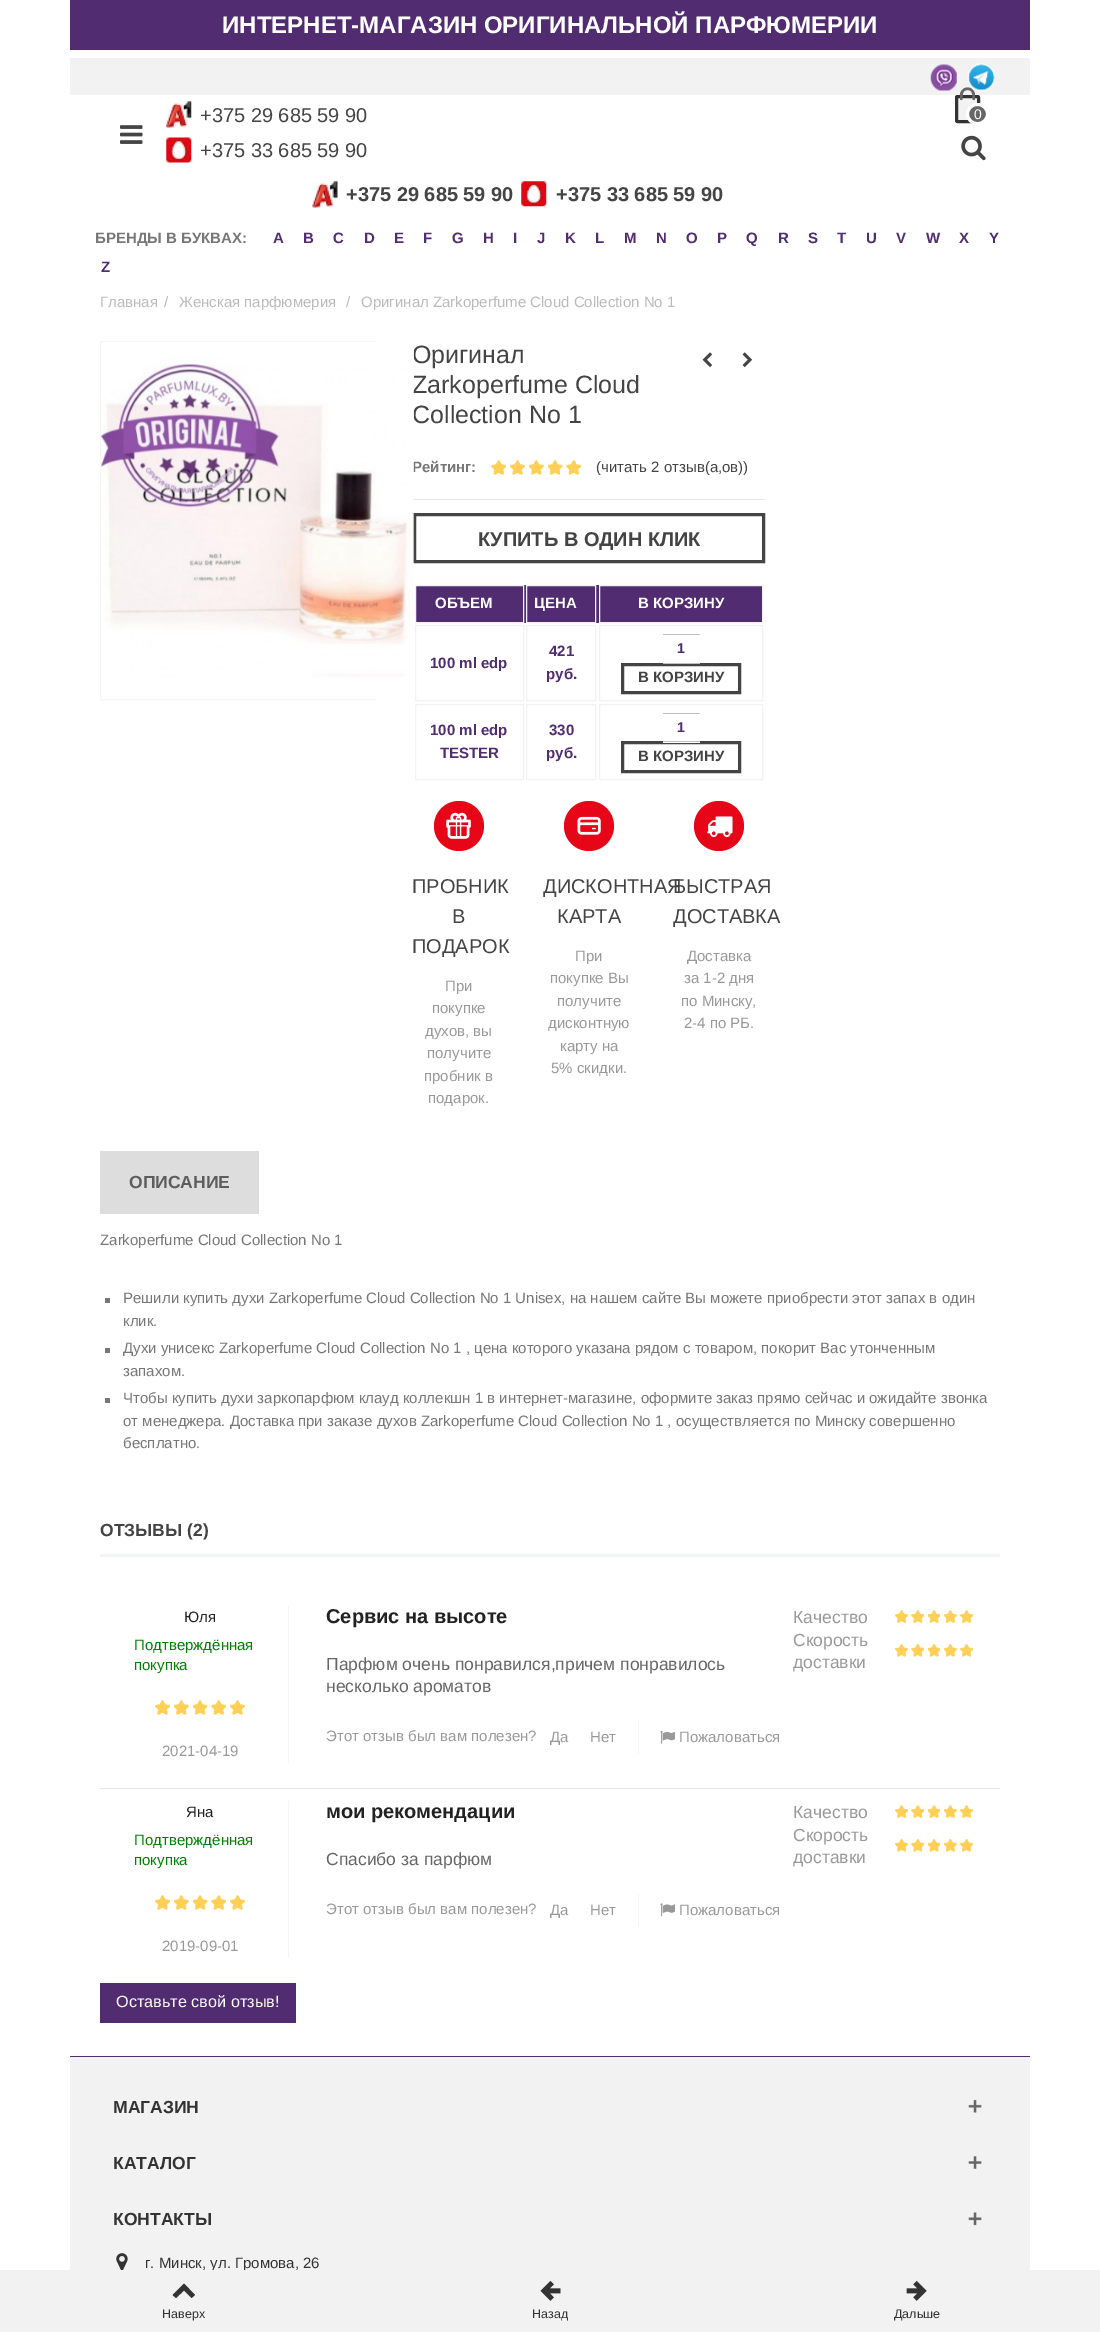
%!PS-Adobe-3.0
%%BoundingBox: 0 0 1100 2332
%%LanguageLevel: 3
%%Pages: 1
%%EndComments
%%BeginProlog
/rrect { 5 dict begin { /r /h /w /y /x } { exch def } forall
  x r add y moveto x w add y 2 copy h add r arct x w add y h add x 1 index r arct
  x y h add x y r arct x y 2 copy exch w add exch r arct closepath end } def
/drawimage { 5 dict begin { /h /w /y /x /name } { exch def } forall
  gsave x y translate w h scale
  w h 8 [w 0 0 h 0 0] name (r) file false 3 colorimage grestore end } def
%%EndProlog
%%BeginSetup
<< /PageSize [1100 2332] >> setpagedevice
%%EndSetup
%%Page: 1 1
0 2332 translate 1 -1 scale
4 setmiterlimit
1 setgray
0 0 1100 2332 rectfill
0.318 0.173 0.443 setrgbcolor
70 0 960 50 rectfill
0.949 setgray
70 58 960 37 rectfill
(images/1.raw) 930 64 27 27 drawimage
(images/2.raw) 967 63 28 29 drawimage
(images/3.raw) 166 101 26 27 drawimage
(images/4.raw) 166 137 26 26 drawimage
956.5 96.5 22 25 1 rrect gsave fill grestore
0.2 setgray
3 setlinewidth
stroke
0.4 setgray
newpath 967.5 87.5 moveto 971.5 87.5 975 91 975 95 curveto 975 100 lineto 960 100 lineto 960 95 lineto 960 91 963.5 87.5 967.5 87.5 curveto closepath 967.5 90 moveto 973 90 972.5 96 972.5 100 curveto 962.5 100 lineto 962.5 96 962 90 967.5 90 curveto closepath eofill
967.5 104.5 20 19 9.5 rrect gsave fill grestore
1 setgray
stroke
(images/5.raw) 961 135 25 26 drawimage
(images/6.raw) 120 125 23 19 drawimage
(images/7.raw) 312 181 26 27 drawimage
(images/8.raw) 521 181 26 26 drawimage
0.961 setgray
1 setlinewidth
100.5 341.5 274 358 rectstroke
(images/10.raw) 702 352 11 16 drawimage
(images/11.raw) 742 352 11 16 drawimage
(images/12.raw) 491 460 15 15 drawimage
(images/13.raw) 510 460 15 15 drawimage
(images/14.raw) 529 460 15 15 drawimage
(images/15.raw) 548 460 15 15 drawimage
(images/12.raw) 566 460 15 15 drawimage
0.898 setgray
413 499 352 1 rectfill
0.267 setgray
3 setlinewidth
414.5 514.5 349 47 rectstroke
0.318 0.173 0.443 setrgbcolor
416 585 346 38 rectfill
0.945 0.949 0.957 setrgbcolor
1 setlinewidth
415.5 585.5 108 37 rectstroke
526.5 585.5 69 37 rectstroke
599.5 585.5 163 37 rectstroke
415.5 625.5 108 75 rectstroke
526.5 625.5 69 75 rectstroke
599.5 625.5 163 75 rectstroke
0.753 setgray
663 634 37 1 rectfill
0.267 setgray
3 setlinewidth
622.5 664.5 117 28 rectstroke
0.753 setgray
663 663 37 1 rectfill
0.945 0.949 0.957 setrgbcolor
1 setlinewidth
415.5 704.5 108 75 rectstroke
526.5 704.5 69 75 rectstroke
599.5 704.5 163 75 rectstroke
0.267 setgray
3 setlinewidth
622.5 742.5 117 29 rectstroke
1 setgray
663 741 37 2 rectfill
0.753 setgray
663 713 37 1 rectfill
663 741 37 1 rectfill
0.906 0.024 0.094 setrgbcolor
newpath 459 826 25 0 360 arc closepath fill
(images/16.raw) 446 812 25 27 drawimage
newpath 589 826 25 0 360 arc closepath fill
(images/17.raw) 577 816 24 19 drawimage
newpath 719 826 25 0 360 arc closepath fill
(images/18.raw) 707 816 26 22 drawimage
0.867 setgray
100 1151 159 63 rectfill
0.467 setgray
105 1298 5 5 rectfill
105 1348 5 5 rectfill
105 1398 5 5 rectfill
0.957 0.961 0.965 setrgbcolor
100 1554 900 3 rectfill
(images/13.raw) 155 1700 15 15 drawimage
(images/14.raw) 174 1700 15 15 drawimage
(images/15.raw) 193 1700 15 15 drawimage
(images/12.raw) 211 1700 15 15 drawimage
(images/13.raw) 230 1700 15 15 drawimage
0.961 setgray
288 1606 1 157 rectfill
(images/19.raw) 895 1610 13 13 drawimage
(images/20.raw) 911 1610 13 13 drawimage
(images/21.raw) 928 1610 12 13 drawimage
(images/22.raw) 944 1610 13 13 drawimage
(images/23.raw) 960 1610 14 13 drawimage
(images/24.raw) 895 1644 13 13 drawimage
(images/25.raw) 911 1644 13 13 drawimage
(images/26.raw) 928 1644 12 13 drawimage
(images/27.raw) 944 1644 13 13 drawimage
(images/28.raw) 960 1644 14 13 drawimage
638 1721 1 33 rectfill
(images/29.raw) 660 1730 15 14 drawimage
0.898 setgray
100 1788 900 1 rectfill
(images/13.raw) 155 1895 15 15 drawimage
(images/14.raw) 174 1895 15 15 drawimage
(images/15.raw) 193 1895 15 15 drawimage
(images/12.raw) 211 1895 15 15 drawimage
(images/13.raw) 230 1895 15 15 drawimage
0.961 setgray
288 1801 1 157 rectfill
(images/19.raw) 895 1805 13 13 drawimage
(images/20.raw) 911 1805 13 13 drawimage
(images/21.raw) 928 1805 12 13 drawimage
(images/22.raw) 944 1805 13 13 drawimage
(images/23.raw) 960 1805 14 13 drawimage
(images/24.raw) 895 1839 13 13 drawimage
(images/25.raw) 911 1839 13 13 drawimage
(images/26.raw) 928 1839 12 13 drawimage
(images/27.raw) 944 1839 13 13 drawimage
(images/28.raw) 960 1839 14 13 drawimage
638 1894 1 32 rectfill
(images/30.raw) 660 1903 15 14 drawimage
0.318 0.173 0.443 setrgbcolor
100 1983 196 40 rectfill
0.949 setgray
70 2057 960 213 rectfill
0.318 0.173 0.443 setrgbcolor
70 2056 960 1 rectfill
(images/31.raw) 968 2099 14 14 drawimage
(images/32.raw) 968 2156 14 13 drawimage
(images/33.raw) 968 2212 14 14 drawimage
(images/34.raw) 116 2253 12 17 drawimage
/LiberationSans-Bold [24 0 0 -24 0 0] selectfont
1 setgray
222 33 moveto (ИНТЕРНЕТ-МАГАЗИН ОРИГИНАЛЬНОЙ ПАРФЮМЕРИИ) show
/LiberationSans-Regular [20 0 0 -20 0 0] selectfont
0.267 setgray
200 122 moveto (+375 29 685 59 90) show
200 157 moveto (+375 33 685 59 90) show
/LiberationSans-Regular [14 0 0 -14 0 0] selectfont
1 setgray
974 119 moveto (0) show
/LiberationSans-Bold [20 0 0 -20 0 0] selectfont
0.267 setgray
346 201 moveto (+375 29 685 59 90) show
556 201 moveto (+375 33 685 59 90) show
/LiberationSans-Bold [15 0 0 -15 0 0] selectfont
0.467 setgray
95 243 moveto (БРЕНДЫ В БУКВАХ:) show
0.318 0.173 0.443 setrgbcolor
273 243 moveto (A) show
303 243 moveto (B) show
333 243 moveto (C) show
364 243 moveto (D) show
394 243 moveto (E) show
423 243 moveto (F) show
452 243 moveto (G) show
483 243 moveto (H) show
513 243 moveto (I) show
537 243 moveto (J) show
565 243 moveto (K) show
595 243 moveto (L) show
624 243 moveto (M) show
656 243 moveto (N) show
686 243 moveto (O) show
717 243 moveto (P) show
746 243 moveto (Q) show
778 243 moveto (R) show
808 243 moveto (S) show
837 243 moveto (T) show
866 243 moveto (U) show
896 243 moveto (V) show
926 243 moveto (W) show
959 243 moveto (X) show
989 243 moveto (Y) show
101 272 moveto (Z) show
/LiberationSans-Regular [15 0 0 -15 0 0] selectfont
0.733 setgray
100 307 moveto (Главная) show
164 307 moveto (/) show
179 307 moveto (Женская парфюмерия) show
346 307 moveto (/) show
361 307 moveto (Оригинал Zarkoperfume Cloud Collection No 1) show
/LiberationSans-Regular [25 0 0 -25 0 0] selectfont
0.267 setgray
412 363 moveto (Оригинал) show
412 393 moveto (Zarkoperfume Cloud) show
412 423 moveto (Collection No 1) show
/LiberationSans-Bold [15 0 0 -15 0 0] selectfont
0.467 setgray
412 472 moveto (Рейтинг:) show
(images/9.raw) 101 342 313 357 drawimage
/LiberationSans-Regular [15 0 0 -15 0 0] selectfont
0.267 setgray
596 472 moveto (\(читать 2 отзыв\(а,ов\)\)) show
/LiberationSans-Bold [20 0 0 -20 0 0] selectfont
478 546 moveto (КУПИТЬ В ОДИН КЛИК) show
/LiberationSans-Bold [15 0 0 -15 0 0] selectfont
1 setgray
435 608 moveto (ОБЪЕМ) show
534 608 moveto (ЦЕНА) show
638 608 moveto (В КОРЗИНУ) show
0.318 0.173 0.443 setrgbcolor
430 668 moveto (100 ml edp) show
549 656 moveto (421) show
546 679 moveto (руб.) show
/LiberationSans-Bold [14 0 0 -14 0 0] selectfont
677 653 moveto (1) show
/LiberationSans-Bold [15 0 0 -15 0 0] selectfont
0.267 setgray
638 682 moveto (В КОРЗИНУ) show
0.318 0.173 0.443 setrgbcolor
430 735 moveto (100 ml edp) show
440 758 moveto (TESTER) show
549 735 moveto (330) show
546 758 moveto (руб.) show
/LiberationSans-Bold [14 0 0 -14 0 0] selectfont
677 732 moveto (1) show
/LiberationSans-Bold [15 0 0 -15 0 0] selectfont
0.267 setgray
638 761 moveto (В КОРЗИНУ) show
/LiberationSans-Regular [20 0 0 -20 0 0] selectfont
412 893 moveto (ПРОБНИК) show
452 923 moveto (В) show
412 953 moveto (ПОДАРОК) show
/LiberationSans-Regular [15 0 0 -15 0 0] selectfont
0.6 setgray
445 991 moveto (При) show
432 1013 moveto (покупке) show
425 1036 moveto (духов, вы) show
427 1058 moveto (получите) show
424 1081 moveto (пробник в) show
428 1103 moveto (подарок.) show
/LiberationSans-Regular [20 0 0 -20 0 0] selectfont
0.267 setgray
543 893 moveto (ДИСКОНТНАЯ) show
557 923 moveto (КАРТА) show
/LiberationSans-Regular [15 0 0 -15 0 0] selectfont
0.6 setgray
575 961 moveto (При) show
550 983 moveto (покупке Вы) show
557 1006 moveto (получите) show
548 1028 moveto (дисконтную) show
560 1051 moveto (карту на) show
551 1073 moveto (5% скидки.) show
/LiberationSans-Regular [20 0 0 -20 0 0] selectfont
0.267 setgray
673 893 moveto (БЫСТРАЯ) show
673 923 moveto (ДОСТАВКА) show
/LiberationSans-Regular [15 0 0 -15 0 0] selectfont
0.6 setgray
687 961 moveto (Доставка) show
684 983 moveto (за 1-2 дня) show
681 1006 moveto (по Минску,) show
684 1028 moveto (2-4 по РБ.) show
/LiberationSans-Bold [17.5 0 0 -17.5 0 0] selectfont
0.365 setgray
129 1188 moveto (ОПИСАНИЕ) show
/LiberationSans-Regular [15 0 0 -15 0 0] selectfont
0.467 setgray
100 1245 moveto (Zarkoperfume Cloud Collection No 1) show
123 1303 moveto (Решили купить духи Zarkoperfume Cloud Collection No 1 Unisex, на нашем сайте Вы можете приобрести этот запах в один) show
123 1326 moveto (клик.) show
123 1353 moveto (Духи унисекс Zarkoperfume Cloud Collection No 1 , цена которого указана рядом с товаром, покорит Вас утонченным) show
123 1376 moveto (запахом.) show
123 1403 moveto (Чтобы купить духи заркопарфюм клауд коллекшн 1 в интернет-магазине, оформите заказ прямо сейчас и ожидайте звонка) show
123 1426 moveto (от менеджера. Доставка при заказе духов Zarkoperfume Cloud Collection No 1 , осуществляется по Минску совершенно) show
123 1448 moveto (бесплатно.) show
/LiberationSans-Bold [17.5 0 0 -17.5 0 0] selectfont
0.267 setgray
100 1536 moveto (ОТЗЫВЫ \(2\)) show
/LiberationSans-Regular [15 0 0 -15 0 0] selectfont
0.133 setgray
184 1622 moveto (Юля) show
0 0.502 0 setrgbcolor
134 1650 moveto (Подтверждённая) show
134 1670 moveto (покупка) show
0.6 setgray
162 1756 moveto (2021-04-19) show
/LiberationSans-Bold [20 0 0 -20 0 0] selectfont
0.133 setgray
326 1623 moveto (Сервис на высоте) show
/LiberationSans-Regular [17.5 0 0 -17.5 0 0] selectfont
0.4 setgray
326 1670 moveto (Парфюм очень понравился,причем понравилось) show
326 1692 moveto (несколько ароматов) show
0.6 setgray
793 1623 moveto (Качество) show
793 1646 moveto (Скорость) show
793 1668 moveto (доставки) show
/LiberationSans-Regular [15 0 0 -15 0 0] selectfont
326 1741 moveto (Этот отзыв был вам полезен?) show
550 1742 moveto (Да) show
590 1742 moveto (Нет) show
679 1742 moveto (Пожаловаться) show
0.133 setgray
186 1817 moveto (Яна) show
0 0.502 0 setrgbcolor
134 1845 moveto (Подтверждённая) show
134 1865 moveto (покупка) show
0.6 setgray
162 1951 moveto (2019-09-01) show
/LiberationSans-Bold [20 0 0 -20 0 0] selectfont
0.133 setgray
326 1818 moveto (мои рекомендации) show
/LiberationSans-Regular [17.5 0 0 -17.5 0 0] selectfont
0.4 setgray
326 1865 moveto (Спасибо за парфюм) show
0.6 setgray
793 1818 moveto (Качество) show
793 1841 moveto (Скорость) show
793 1863 moveto (доставки) show
/LiberationSans-Regular [15 0 0 -15 0 0] selectfont
326 1914 moveto (Этот отзыв был вам полезен?) show
550 1915 moveto (Да) show
590 1915 moveto (Нет) show
679 1915 moveto (Пожаловаться) show
/LiberationSans-Regular [16.25 0 0 -16.25 0 0] selectfont
1 setgray
116 2007 moveto (Оставьте свой отзыв!) show
/LiberationSans-Bold [17.5 0 0 -17.5 0 0] selectfont
0.2 setgray
113 2113 moveto (МАГАЗИН) show
113 2169 moveto (КАТАЛОГ) show
113 2225 moveto (КОНТАКТЫ) show
/LiberationSans-Regular [15 0 0 -15 0 0] selectfont
145 2268 moveto (г. Минск, ул. Громова, 26) show
0.949 setgray
0 2270 1100 62 rectfill
0.2 setgray
newpath 172.5 2295 moveto 184 2283.5 lineto 195 2295 lineto 191.5 2298 lineto 184 2290.5 lineto 176 2298 lineto closepath fill
/LiberationSans-Regular [12.5 0 0 -12.5 0 0] selectfont
162 2318 moveto (Наверх) show
(images/35.raw) 540 2280 21 21 drawimage
532 2318 moveto (Назад) show
(images/36.raw) 906 2280 21 21 drawimage
894 2318 moveto (Дальше) show
showpage
%%EOF
